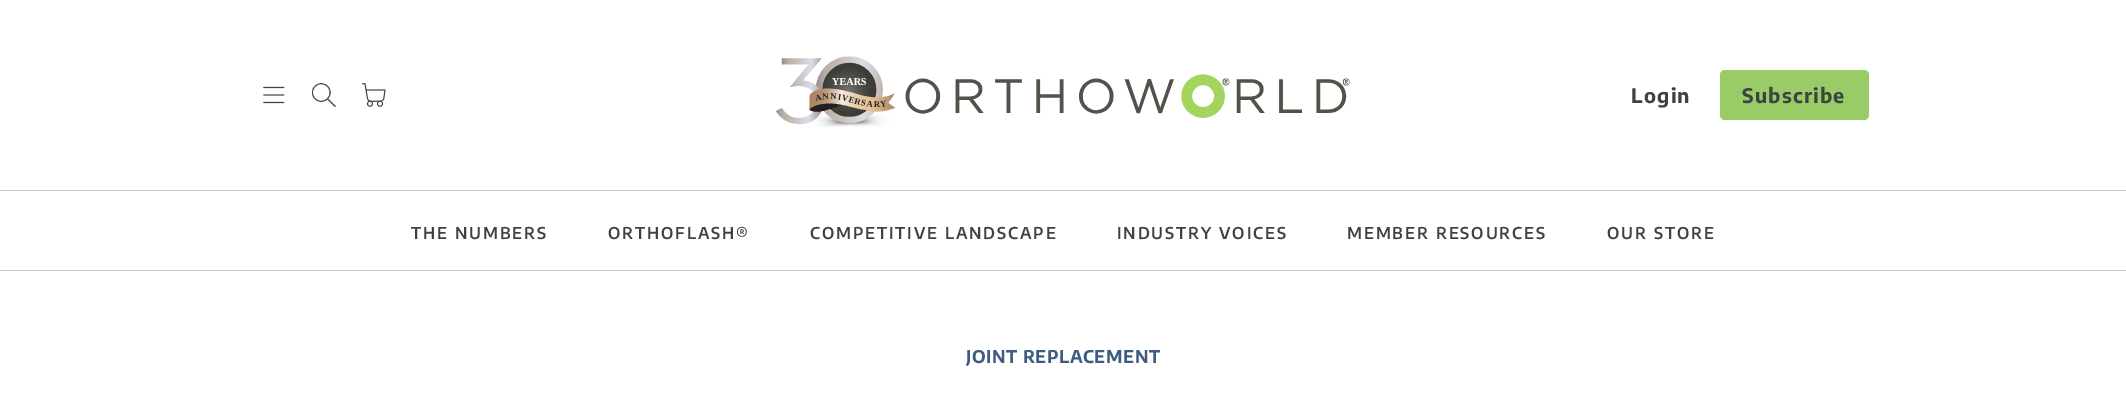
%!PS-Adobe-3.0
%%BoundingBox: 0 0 2126 397
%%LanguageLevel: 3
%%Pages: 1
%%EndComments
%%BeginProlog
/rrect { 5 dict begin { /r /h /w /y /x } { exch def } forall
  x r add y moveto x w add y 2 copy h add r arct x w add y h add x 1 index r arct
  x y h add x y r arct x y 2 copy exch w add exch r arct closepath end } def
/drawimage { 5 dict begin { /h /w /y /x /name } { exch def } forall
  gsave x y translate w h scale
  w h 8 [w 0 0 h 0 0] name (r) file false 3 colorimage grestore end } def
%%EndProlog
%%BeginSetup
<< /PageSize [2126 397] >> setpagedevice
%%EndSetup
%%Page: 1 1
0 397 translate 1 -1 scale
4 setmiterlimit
1 setgray
0 0 2126 397 rectfill
0.765 0.804 0.808 setrgbcolor
0 270 2126 1 rectfill
(images/1.raw) 263 86 22 18 drawimage
(images/2.raw) 312 83 24 24 drawimage
(images/3.raw) 361 83 25 24 drawimage
(images/4.raw) 776 56 574 71 drawimage
0.6 0.8 0.4 setrgbcolor
1720 70 149 50 5 rrect fill
0.765 0.804 0.808 setrgbcolor
0 190 2126 1 rectfill
/EncodeSansCondensed-Bold [20 0 0 -20 0 0] selectfont
0.239 0.259 0.259 setrgbcolor
1631 103 moveto 1.25 0 (Login) ashow
1742 103 moveto 1.25 0 (Subscribe) ashow
/EncodeSansCondensed-SemiBold [16.25 0 0 -16.25 0 0] selectfont
411 239 moveto 1.9 0 (THE NUMBERS) ashow
608 239 moveto 1.9 0 (ORTHOFLASH®) ashow
810 239 moveto 1.9 0 (COMPETITIVE LANDSCAPE) ashow
1117 239 moveto 1.9 0 (INDUSTRY VOICES) ashow
1347 239 moveto 1.9 0 (MEMBER RESOURCES) ashow
1607 239 moveto 1.9 0 (OUR STORE) ashow
/EncodeSansCondensed-Bold [17.5 0 0 -17.5 0 0] selectfont
0.243 0.361 0.506 setrgbcolor
966 363 moveto 0.6 0 (JOINT REPLACEMENT) ashow
showpage
%%EOF
